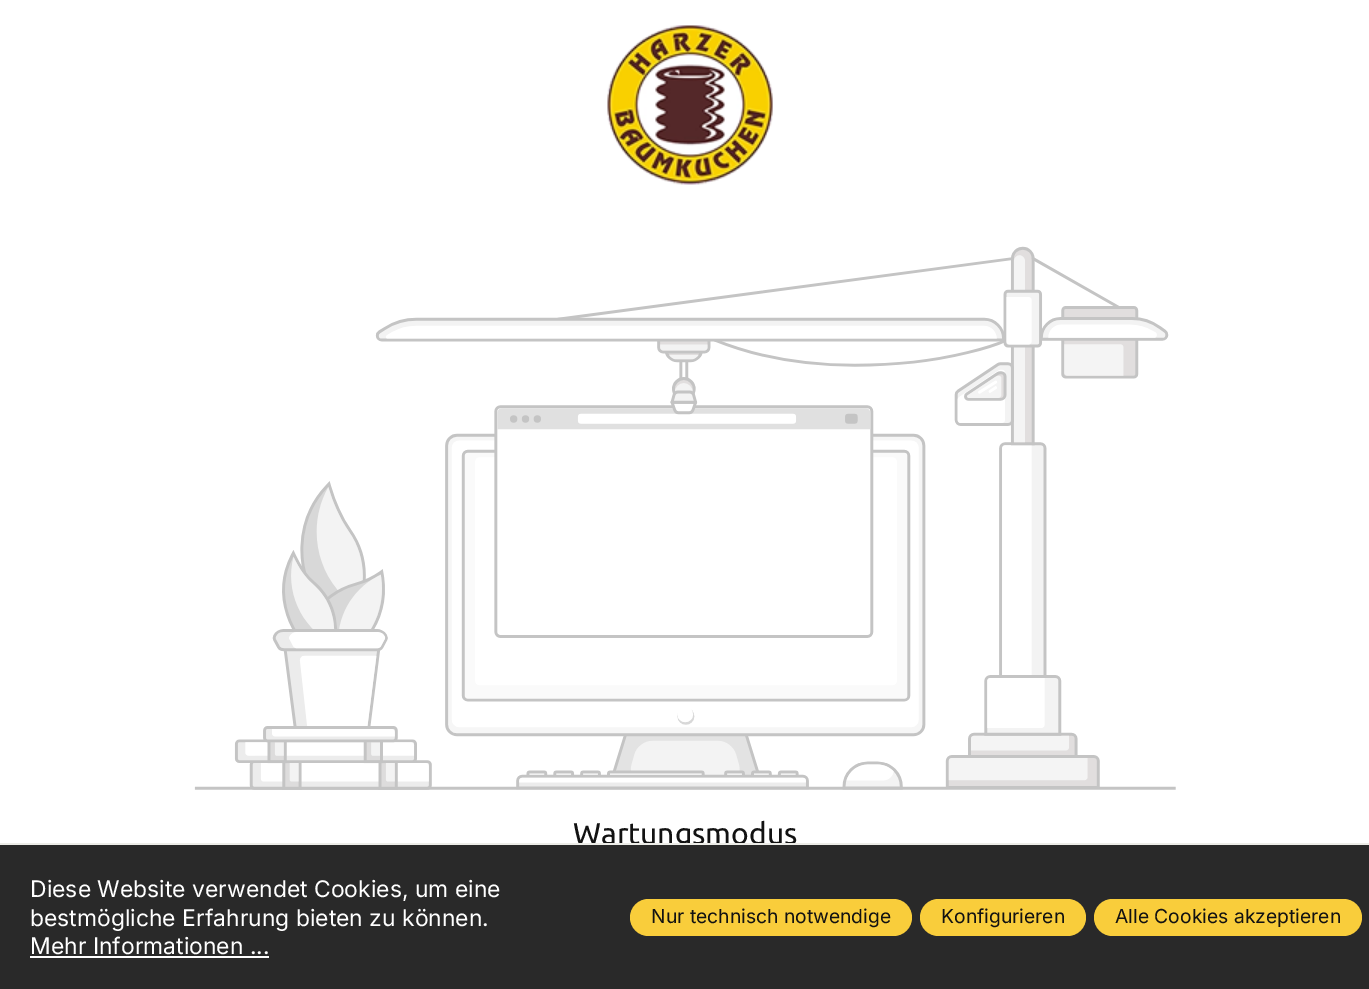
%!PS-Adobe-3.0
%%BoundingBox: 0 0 1369 989
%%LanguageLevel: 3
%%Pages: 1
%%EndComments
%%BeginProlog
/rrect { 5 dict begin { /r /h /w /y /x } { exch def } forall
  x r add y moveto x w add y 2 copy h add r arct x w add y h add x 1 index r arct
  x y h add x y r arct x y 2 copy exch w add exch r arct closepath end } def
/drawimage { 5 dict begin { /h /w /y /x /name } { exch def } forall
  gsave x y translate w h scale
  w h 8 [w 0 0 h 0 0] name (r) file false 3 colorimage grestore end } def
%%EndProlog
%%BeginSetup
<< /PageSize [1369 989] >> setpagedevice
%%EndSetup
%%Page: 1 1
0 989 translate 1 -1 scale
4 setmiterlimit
1 setgray
0 0 1369 989 rectfill
(images/1.raw) 607 25 166 160 drawimage
(images/2.raw) 194 246 982 544 drawimage
/Ubuntu-Regular [30 0 0 -30 0 0] selectfont
0.071 setgray
573 844 moveto (Wartungsmodus) show
0.161 setgray
0 845 1369 144 rectfill
0.925 0.925 0.906 setrgbcolor
0 843 1369 2 rectfill
/Inter-Regular [22.9 0 0 -22.9 0 0] selectfont
1 setgray
30 897 moveto (Diese Website verwendet Cookies, um eine) show
30 926 moveto (bestmögliche Erfahrung bieten zu können.) show
30 954 moveto (Mehr Informationen ...) show
30 956 239 2 rectfill
0.976 0.804 0.231 setrgbcolor
630 899 282 37 18.5 rrect fill
/Inter-Regular [19.3 0 0 -19.3 0 0] selectfont
0.071 setgray
651 923 moveto (Nur technisch notwendige) show
0.976 0.804 0.231 setrgbcolor
920 899 166 37 18.5 rrect fill
0.071 setgray
941 923 moveto (Konfigurieren) show
0.976 0.804 0.231 setrgbcolor
1094 899 268 37 18.5 rrect fill
0.071 setgray
1115 923 moveto (Alle Cookies akzeptieren) show
showpage
%%EOF
